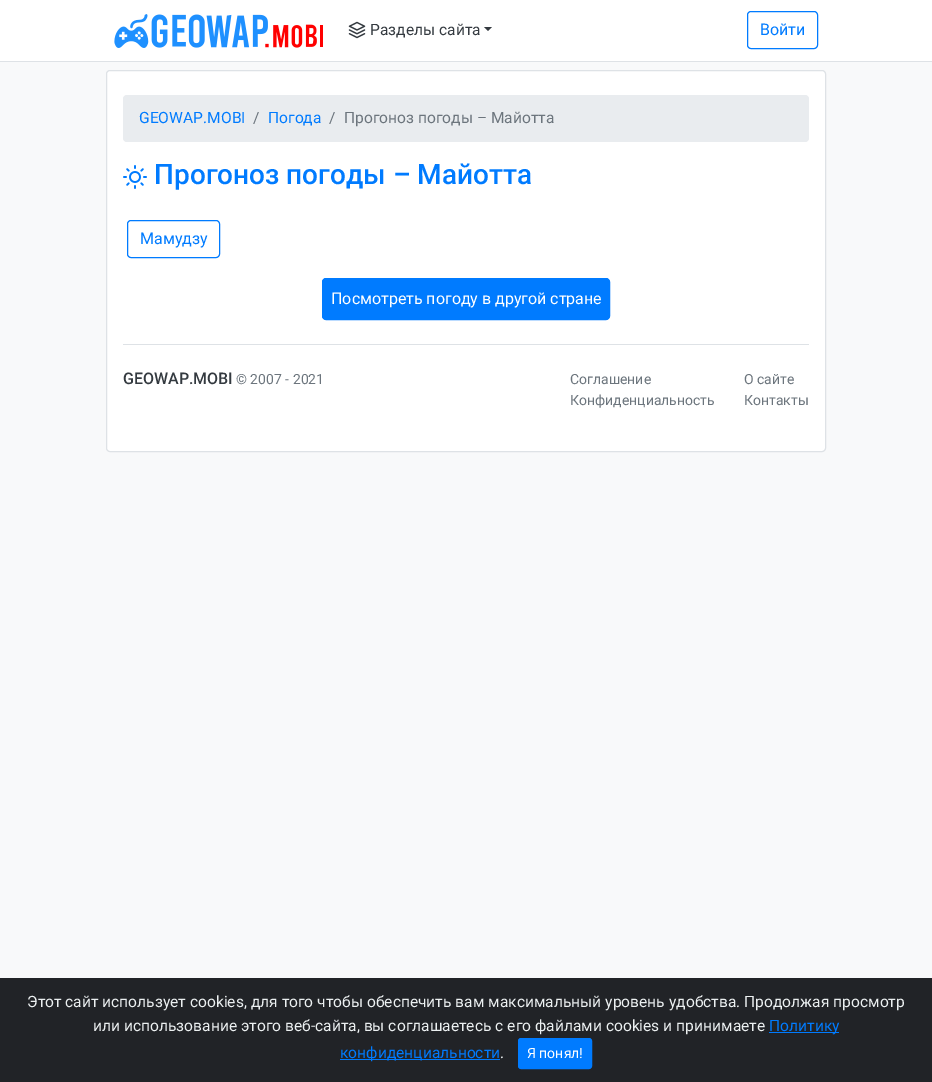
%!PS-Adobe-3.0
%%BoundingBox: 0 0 932 1082
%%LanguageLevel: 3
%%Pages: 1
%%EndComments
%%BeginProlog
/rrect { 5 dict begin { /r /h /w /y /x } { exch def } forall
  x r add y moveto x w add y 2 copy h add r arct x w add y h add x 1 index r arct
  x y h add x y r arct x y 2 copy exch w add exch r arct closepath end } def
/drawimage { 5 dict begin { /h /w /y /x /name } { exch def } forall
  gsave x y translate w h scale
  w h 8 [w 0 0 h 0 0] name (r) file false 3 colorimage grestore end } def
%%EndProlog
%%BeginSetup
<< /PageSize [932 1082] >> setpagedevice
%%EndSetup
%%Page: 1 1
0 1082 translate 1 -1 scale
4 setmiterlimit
0.973 0.976 0.98 setrgbcolor
0 0 932 1082 rectfill
1 setgray
0 0 932 61 rectfill
0.871 0.886 0.902 setrgbcolor
0 61 932 1 rectfill
(images/1.raw) 114 14 209 34 drawimage
(images/2.raw) 348 21 18 18 drawimage
0.204 0.227 0.251 setrgbcolor
newpath 484 27 moveto 492 27 lineto 488 31 lineto closepath fill
0 0.482 1 setrgbcolor
747.5 11.5 70 37 3.5 rrect stroke
1 setgray
106.5 70.5 719 381 3.5 rrect gsave fill grestore
0.871 0.886 0.902 setrgbcolor
stroke
0.914 0.925 0.937 setrgbcolor
123 95 686 47 4 rrect fill
(images/3.raw) 123 165 24 24 drawimage
0 0.482 1 setrgbcolor
127.5 220.5 92 37 3.5 rrect stroke
322.5 278.5 287 41 3.5 rrect gsave fill grestore
stroke
0.871 0.886 0.902 setrgbcolor
123 344 686 1 rectfill
0.129 0.137 0.153 setrgbcolor
0 978 932 104 rectfill
0 0.482 1 setrgbcolor
769 1032 70 1 rectfill
340 1059 160 1 rectfill
518.5 1038.5 73 30 2.5 rrect gsave fill grestore
stroke
/Roboto-Regular [15.6 0 0 -15.6 0 0] selectfont
0.204 0.227 0.251 setrgbcolor
370 35 moveto (Разделы сайта) show
/Roboto-Regular [16 0 0 -16 0 0] selectfont
0 0.482 1 setrgbcolor
760 35 moveto (Войти) show
/Roboto-Regular [15.6 0 0 -15.6 0 0] selectfont
139 123 moveto (GEOWAP.MOBI) show
0.424 0.459 0.49 setrgbcolor
253 123 moveto (/) show
0 0.482 1 setrgbcolor
268 123 moveto (Погода) show
0.424 0.459 0.49 setrgbcolor
329 123 moveto (/) show
344 123 moveto (Прогоноз погоды – Майотта) show
/Roboto-Medium [28 0 0 -28 0 0] selectfont
0 0.482 1 setrgbcolor
154 184 moveto (Прогоноз погоды – Майотта) show
/Roboto-Regular [16 0 0 -16 0 0] selectfont
140 244 moveto (Мамудзу) show
1 setgray
331 304 moveto (Посмотреть погоду в другой стране) show
/Roboto-Medium [16 0 0 -16 0 0] selectfont
0.204 0.227 0.251 setrgbcolor
123 384 moveto (GEOWAP.MOBI) show
/Roboto-Regular [14 0 0 -14 0 0] selectfont
0.424 0.459 0.49 setrgbcolor
236 384 moveto (© 2007 - 2021) show
570 384 moveto (Соглашение) show
570 405 moveto (Конфиденциальность) show
744 384 moveto (О сайте) show
744 405 moveto (Контакты) show
/Roboto-Regular [15.6 0 0 -15.6 0 0] selectfont
0.925 0.941 0.945 setrgbcolor
27 1007 moveto (Этот сайт использует cookies, для того чтобы обеспечить вам максимальный уровень удобства. Продолжая просмотр) show
93 1031 moveto (или использование этого веб-сайта, вы соглашаетесь с его файлами cookies и принимаете) show
0 0.482 1 setrgbcolor
769 1031 moveto (Политику) show
340 1058 moveto (конфиденциальности) show
0.925 0.941 0.945 setrgbcolor
500 1058 moveto (.) show
/Roboto-Regular [14 0 0 -14 0 0] selectfont
1 setgray
527 1058 moveto (Я понял!) show
showpage
%%EOF
